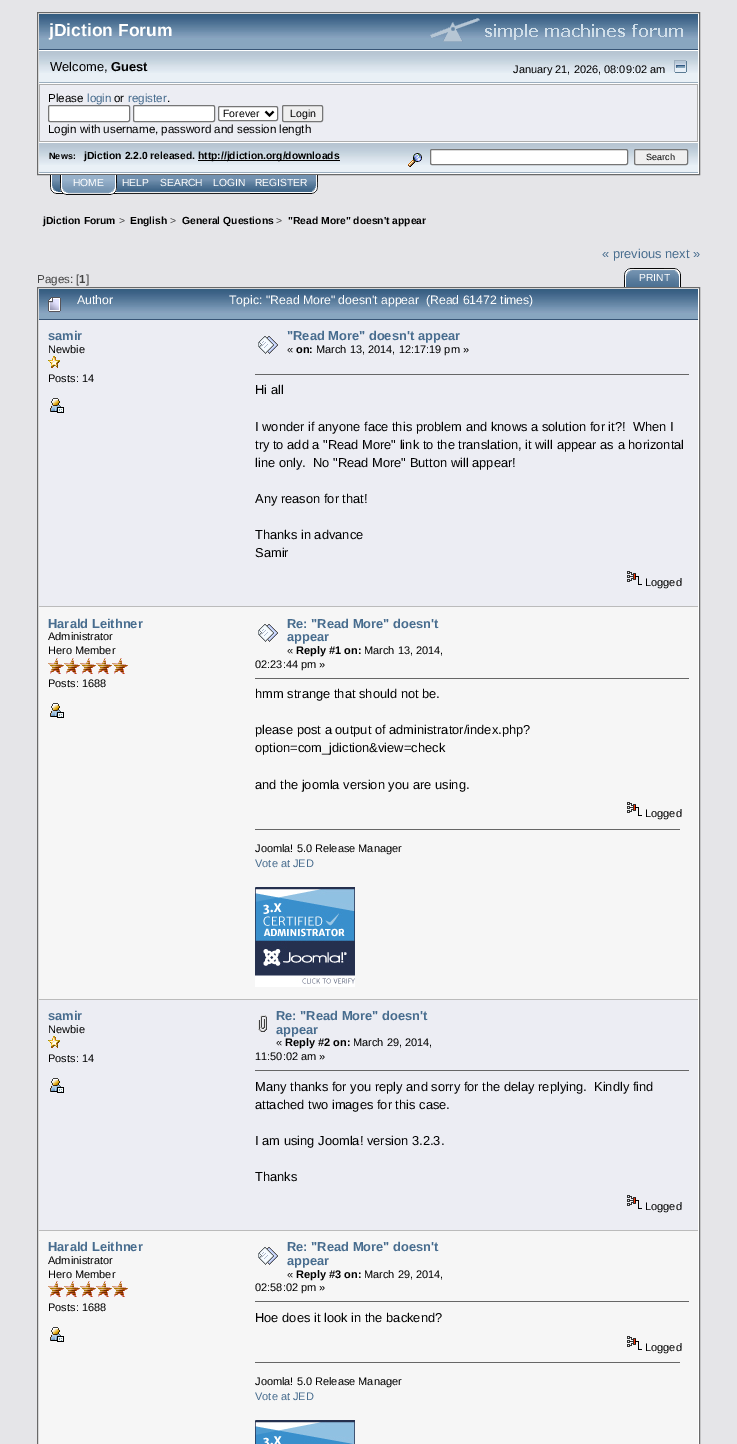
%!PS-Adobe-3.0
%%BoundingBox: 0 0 737 1444
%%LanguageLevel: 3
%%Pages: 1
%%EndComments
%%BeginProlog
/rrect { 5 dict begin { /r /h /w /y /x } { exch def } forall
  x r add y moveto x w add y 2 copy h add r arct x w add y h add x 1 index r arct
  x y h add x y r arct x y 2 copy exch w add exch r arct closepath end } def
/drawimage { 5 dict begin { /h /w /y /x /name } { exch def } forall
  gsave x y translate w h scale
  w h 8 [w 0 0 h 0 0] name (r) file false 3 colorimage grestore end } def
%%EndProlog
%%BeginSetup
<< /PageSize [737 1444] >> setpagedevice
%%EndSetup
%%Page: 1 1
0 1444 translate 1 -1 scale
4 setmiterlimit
0.898 0.898 0.91 setrgbcolor
0 0 737 1444 rectfill
1 setgray
newpath 37.5 12.5 moveto 699.5 12.5 lineto 699.5 174.5 lineto 37.5 174.5 lineto closepath gsave fill grestore
0.412 setgray
stroke
0.533 0.651 0.753 setrgbcolor
39 38 659 11 rectfill
(images/1.raw) 39 14 659 24 drawimage
0.216 0.333 0.463 setrgbcolor
39 49 659 1 rectfill
(images/2.raw) 430 18 253 24 drawimage
0.914 0.941 0.965 setrgbcolor
39 73 659 9 rectfill
(images/3.raw) 39 51 659 22 drawimage
0.608 0.682 0.749 setrgbcolor
39 82 659 1 rectfill
(images/4.raw) 674 60 13 13 drawimage
0.678 setgray
39 84 659 58 rectfill
0.925 0.929 0.953 setrgbcolor
40 85 657 56 rectfill
1 setgray
48.5 105.5 81 16 1.5 rrect gsave fill grestore
0.463 setgray
stroke
1 setgray
133.5 105.5 81 16 1.5 rrect gsave fill grestore
0.463 setgray
stroke
1 setgray
218.5 106.5 59 14 1.5 rrect gsave fill grestore
0.463 setgray
stroke
0 setgray
2 setlinewidth
newpath 265.5 111.5 moveto 269.5 115.5 lineto 273.5 111.5 lineto stroke
0.937 setgray
282.5 105.5 40 16 1.5 rrect gsave fill grestore
0.463 setgray
1 setlinewidth
stroke
0.914 0.941 0.965 setrgbcolor
39 165 659 7 rectfill
(images/3.raw) 39 143 659 22 drawimage
0.608 0.682 0.749 setrgbcolor
39 172 659 1 rectfill
0 setgray
198 160 142 1 rectfill
(images/5.raw) 408 153 14 14 drawimage
1 setgray
430.5 149.5 197 15 1.5 rrect gsave fill grestore
0.463 setgray
stroke
0.937 setgray
634.5 149.5 53 15 1.5 rrect gsave fill grestore
0.463 setgray
stroke
(images/6.raw) 50 175 10 19 drawimage
(images/7.raw) 109 175 8 20 drawimage
(images/8.raw) 60 175 8 20 drawimage
(images/9.raw) 68 175 41 20 drawimage
(images/10.raw) 117 175 37 20 drawimage
(images/11.raw) 154 175 54 20 drawimage
(images/12.raw) 208 175 42 20 drawimage
(images/13.raw) 250 175 68 19 drawimage
(images/14.raw) 624 268 40 19 drawimage
(images/15.raw) 634 268 47 19 drawimage
1 setgray
newpath 37.5 287.5 moveto 699.5 287.5 lineto 699.5 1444.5 lineto 37.5 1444.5 lineto closepath gsave fill grestore
0.412 setgray
stroke
0.533 0.651 0.753 setrgbcolor
39 313 659 6 rectfill
(images/1.raw) 39 289 659 24 drawimage
0.216 0.333 0.463 setrgbcolor
39 319 659 1 rectfill
(images/16.raw) 48 297 13 15 drawimage
0.925 0.929 0.953 setrgbcolor
39 320 659 286 rectfill
(images/17.raw) 48 356 12 12 drawimage
(images/18.raw) 50 398 14 15 drawimage
(images/19.raw) 258 336 20 18 drawimage
0.4 setgray
255 374 434 1 rectfill
(images/20.raw) 627 571 15 14 drawimage
0.965 setgray
39 607 659 392 rectfill
0.733 setgray
39 606 659 1 rectfill
(images/21.raw) 48 658 16 16 drawimage
(images/21.raw) 64 658 16 16 drawimage
(images/21.raw) 80 658 16 16 drawimage
(images/21.raw) 96 658 16 16 drawimage
(images/21.raw) 112 658 16 16 drawimage
(images/22.raw) 50 703 14 15 drawimage
(images/23.raw) 258 624 20 18 drawimage
0.4 setgray
255 678 434 1 rectfill
(images/24.raw) 627 802 15 14 drawimage
255 829 425 1 rectfill
(images/25.raw) 255 887 100 100 drawimage
0.925 0.929 0.953 setrgbcolor
39 1000 659 230 rectfill
0.733 setgray
39 999 659 1 rectfill
(images/17.raw) 48 1036 12 12 drawimage
(images/18.raw) 50 1078 14 15 drawimage
(images/26.raw) 258 1015 9 17 drawimage
0.4 setgray
255 1070 434 1 rectfill
(images/20.raw) 627 1195 15 14 drawimage
0.965 setgray
39 1231 659 213 rectfill
0.733 setgray
39 1230 659 1 rectfill
(images/21.raw) 48 1281 16 16 drawimage
(images/21.raw) 64 1281 16 16 drawimage
(images/21.raw) 80 1281 16 16 drawimage
(images/21.raw) 96 1281 16 16 drawimage
(images/21.raw) 112 1281 16 16 drawimage
(images/22.raw) 50 1327 14 15 drawimage
(images/23.raw) 258 1247 20 18 drawimage
0.4 setgray
255 1301 434 1 rectfill
(images/24.raw) 627 1336 15 14 drawimage
255 1362 425 1 rectfill
(images/27.raw) 255 1420 100 24 drawimage
/LiberationSans-Bold [17.5 0 0 -17.5 0 0] selectfont
1 setgray
49 36 moveto (jDiction Forum) show
/LiberationSans-Regular [12.9 0 0 -12.9 0 0] selectfont
0 setgray
50 71 moveto (Welcome,) show
/LiberationSans-Bold [12.9 0 0 -12.9 0 0] selectfont
111 71 moveto (Guest) show
/LiberationSans-Regular [11 0 0 -11 0 0] selectfont
513 73 moveto (January 21, 2026, 08:09:02 am) show
/LiberationSans-Regular [11.6 0 0 -11.6 0 0] selectfont
48 102 moveto (Please) show
0.278 0.424 0.557 setrgbcolor
87 102 moveto (login) show
0 setgray
114 102 moveto (or) show
0.278 0.424 0.557 setrgbcolor
128 102 moveto (register) show
0 setgray
167 102 moveto (.) show
/LiberationSans-Regular [10.5 0 0 -10.5 0 0] selectfont
223 117 moveto (Forever) show
290 117 moveto (Login) show
/LiberationSans-Regular [11.6 0 0 -11.6 0 0] selectfont
48 133 moveto (Login with username, password and session length) show
/LiberationSans-Bold [9 0 0 -9 0 0] selectfont
49 159 moveto (News:) show
/LiberationSans-Bold [10.3 0 0 -10.3 0 0] selectfont
84 159 moveto (jDiction 2.2.0 released.) show
198 159 moveto (http://jdiction.org/downloads) show
/LiberationSans-Regular [9 0 0 -9 0 0] selectfont
646 160 moveto (Search) show
/LiberationSans-Regular [10.3 0 0 -10.3 0 0] selectfont
1 setgray
73 186 moveto (HOME) show
122 186 moveto (HELP) show
160 186 moveto (SEARCH) show
213 186 moveto (LOGIN) show
255 186 moveto (REGISTER) show
/LiberationSans-Bold [10.3 0 0 -10.3 0 0] selectfont
0 setgray
43 224 moveto (jDiction Forum) show
/LiberationSans-Regular [10.3 0 0 -10.3 0 0] selectfont
0.267 setgray
119 224 moveto (>) show
/LiberationSans-Bold [10.3 0 0 -10.3 0 0] selectfont
0 setgray
130 224 moveto (English) show
/LiberationSans-Regular [10.3 0 0 -10.3 0 0] selectfont
0.267 setgray
170 224 moveto (>) show
/LiberationSans-Bold [10.3 0 0 -10.3 0 0] selectfont
0 setgray
182 224 moveto (General Questions) show
/LiberationSans-Regular [10.3 0 0 -10.3 0 0] selectfont
0.267 setgray
276 224 moveto (>) show
/LiberationSans-Bold [10.3 0 0 -10.3 0 0] selectfont
0 setgray
288 224 moveto ("Read More" doesn't appear) show
/LiberationSans-Regular [12.9 0 0 -12.9 0 0] selectfont
0.278 0.424 0.557 setrgbcolor
602 258 moveto (« previous next ») show
/LiberationSans-Regular [11.6 0 0 -11.6 0 0] selectfont
0.267 setgray
37 283 moveto (Pages: [) show
/LiberationSans-Bold [11.6 0 0 -11.6 0 0] selectfont
79 283 moveto (1) show
/LiberationSans-Regular [11.6 0 0 -11.6 0 0] selectfont
86 283 moveto (]) show
/LiberationSans-Regular [10.3 0 0 -10.3 0 0] selectfont
1 setgray
639 281 moveto (PRINT) show
/LiberationSans-Regular [12.25 0 0 -12.25 0 0] selectfont
77 304 moveto (Author) show
229 304 moveto (Topic: "Read More" doesn't appear  \(Read 61472 times\)) show
/LiberationSans-Bold [12.9 0 0 -12.9 0 0] selectfont
0.278 0.424 0.557 setrgbcolor
48 340 moveto (samir) show
/LiberationSans-Regular [11 0 0 -11 0 0] selectfont
0 setgray
48 353 moveto (Newbie) show
48 382 moveto (Posts: 14) show
/LiberationSans-Bold [12.9 0 0 -12.9 0 0] selectfont
0.278 0.424 0.557 setrgbcolor
287 340 moveto ("Read More" doesn't appear) show
/LiberationSans-Regular [11 0 0 -11 0 0] selectfont
0 setgray
287 353 moveto («) show
/LiberationSans-Bold [11 0 0 -11 0 0] selectfont
296 353 moveto (on:) show
/LiberationSans-Regular [11 0 0 -11 0 0] selectfont
316 353 moveto (March 13, 2014, 12:17:19 pm ») show
/LiberationSans-Regular [12.9 0 0 -12.9 0 0] selectfont
255 394 moveto (Hi all) show
255 431 moveto (I wonder if anyone face this problem and knows a solution for it?!  When I) show
255 449 moveto (try to add a "Read More" link to the translation, it will appear as a horizontal) show
255 467 moveto (line only.  No "Read More" Button will appear!) show
255 503 moveto (Any reason for that!) show
255 539 moveto (Thanks in advance) show
255 557 moveto (Samir) show
/LiberationSans-Regular [11 0 0 -11 0 0] selectfont
645 586 moveto (Logged) show
/LiberationSans-Bold [12.9 0 0 -12.9 0 0] selectfont
0.278 0.424 0.557 setrgbcolor
48 628 moveto (Harald Leithner) show
/LiberationSans-Regular [11 0 0 -11 0 0] selectfont
0 setgray
48 640 moveto (Administrator) show
48 654 moveto (Hero Member) show
48 687 moveto (Posts: 1688) show
/LiberationSans-Bold [12.9 0 0 -12.9 0 0] selectfont
0.278 0.424 0.557 setrgbcolor
287 628 moveto (Re: "Read More" doesn't) show
287 641 moveto (appear) show
/LiberationSans-Regular [11 0 0 -11 0 0] selectfont
0 setgray
287 654 moveto («) show
/LiberationSans-Bold [11 0 0 -11 0 0] selectfont
296 654 moveto (Reply #1 on:) show
/LiberationSans-Regular [11 0 0 -11 0 0] selectfont
364 654 moveto (March 13, 2014,) show
255 668 moveto (02:23:44 pm ») show
/LiberationSans-Regular [12.9 0 0 -12.9 0 0] selectfont
255 698 moveto (hmm strange that should not be.) show
255 734 moveto (please post a output of administrator/index.php?) show
255 752 moveto (option=com_jdiction&view=check) show
255 789 moveto (and the joomla version you are using.) show
/LiberationSans-Regular [11 0 0 -11 0 0] selectfont
645 817 moveto (Logged) show
255 852 moveto (Joomla! 5.0 Release Manager) show
0.278 0.424 0.557 setrgbcolor
255 867 moveto (Vote at JED) show
/LiberationSans-Bold [12.9 0 0 -12.9 0 0] selectfont
48 1020 moveto (samir) show
/LiberationSans-Regular [11 0 0 -11 0 0] selectfont
0 setgray
48 1033 moveto (Newbie) show
48 1062 moveto (Posts: 14) show
/LiberationSans-Bold [12.9 0 0 -12.9 0 0] selectfont
0.278 0.424 0.557 setrgbcolor
276 1020 moveto (Re: "Read More" doesn't) show
276 1034 moveto (appear) show
/LiberationSans-Regular [11 0 0 -11 0 0] selectfont
0 setgray
276 1046 moveto («) show
/LiberationSans-Bold [11 0 0 -11 0 0] selectfont
285 1046 moveto (Reply #2 on:) show
/LiberationSans-Regular [11 0 0 -11 0 0] selectfont
353 1046 moveto (March 29, 2014,) show
255 1060 moveto (11:50:02 am ») show
/LiberationSans-Regular [12.9 0 0 -12.9 0 0] selectfont
255 1091 moveto (Many thanks for you reply and sorry for the delay replying.  Kindly find) show
255 1109 moveto (attached two images for this case.) show
255 1145 moveto (I am using Joomla! version 3.2.3.) show
255 1181 moveto (Thanks) show
/LiberationSans-Regular [11 0 0 -11 0 0] selectfont
645 1210 moveto (Logged) show
/LiberationSans-Bold [12.9 0 0 -12.9 0 0] selectfont
0.278 0.424 0.557 setrgbcolor
48 1251 moveto (Harald Leithner) show
/LiberationSans-Regular [11 0 0 -11 0 0] selectfont
0 setgray
48 1264 moveto (Administrator) show
48 1278 moveto (Hero Member) show
48 1311 moveto (Posts: 1688) show
/LiberationSans-Bold [12.9 0 0 -12.9 0 0] selectfont
0.278 0.424 0.557 setrgbcolor
287 1251 moveto (Re: "Read More" doesn't) show
287 1265 moveto (appear) show
/LiberationSans-Regular [11 0 0 -11 0 0] selectfont
0 setgray
287 1278 moveto («) show
/LiberationSans-Bold [11 0 0 -11 0 0] selectfont
296 1278 moveto (Reply #3 on:) show
/LiberationSans-Regular [11 0 0 -11 0 0] selectfont
364 1278 moveto (March 29, 2014,) show
255 1291 moveto (02:58:02 pm ») show
/LiberationSans-Regular [12.9 0 0 -12.9 0 0] selectfont
255 1322 moveto (Hoe does it look in the backend?) show
/LiberationSans-Regular [11 0 0 -11 0 0] selectfont
645 1351 moveto (Logged) show
255 1385 moveto (Joomla! 5.0 Release Manager) show
0.278 0.424 0.557 setrgbcolor
255 1400 moveto (Vote at JED) show
showpage
%%EOF
